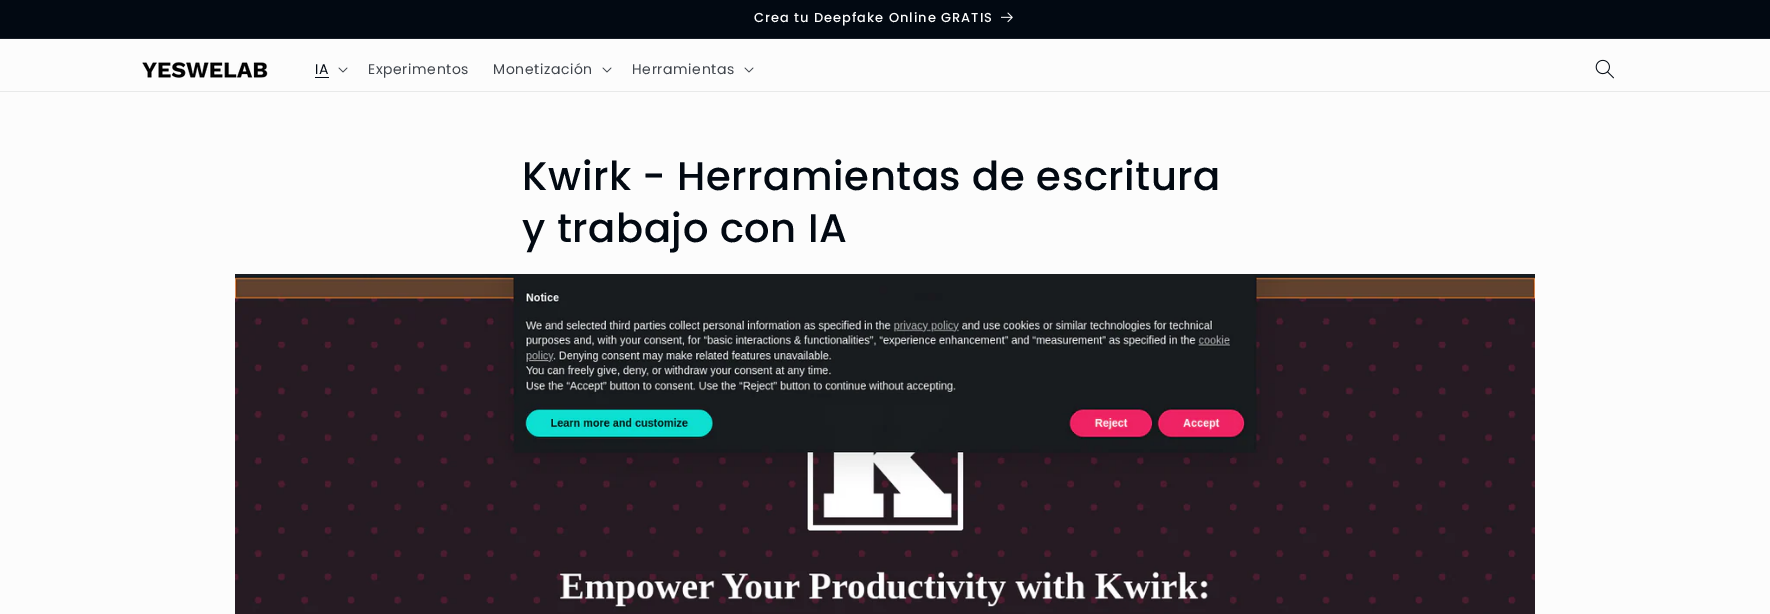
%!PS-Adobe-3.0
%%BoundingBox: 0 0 1770 614
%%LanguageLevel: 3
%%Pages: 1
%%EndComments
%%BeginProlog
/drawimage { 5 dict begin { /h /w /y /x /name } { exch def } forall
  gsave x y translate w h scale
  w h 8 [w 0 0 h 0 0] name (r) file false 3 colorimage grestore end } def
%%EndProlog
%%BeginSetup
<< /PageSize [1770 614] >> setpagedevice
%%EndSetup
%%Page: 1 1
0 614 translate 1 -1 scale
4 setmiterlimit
0.988 setgray
0 0 1770 614 rectfill
0.008 0.035 0.071 setrgbcolor
0 0 1770 38 rectfill
0.086 0.11 0.145 setrgbcolor
0 38 1770 1 rectfill
(images/1.raw) 1001 12 12 11 drawimage
0.91 0.914 0.914 setrgbcolor
0 91 1770 1 rectfill
(images/2.raw) 142 62 126 16 drawimage
0.008 0.035 0.071 setrgbcolor
315 77 14 1 rectfill
(images/3.raw) 338 67 10 6 drawimage
(images/3.raw) 602 67 10 6 drawimage
(images/3.raw) 744 67 10 6 drawimage
(images/4.raw) 1595 59 19 20 drawimage
(images/5.raw) 235 274 1300 340 drawimage
/Poppins-Medium [13 0 0 -13 0 0] selectfont
0.988 setgray
754 22 moveto 1 0 (Crea tu Deepfake Online GRATIS) ashow
/Poppins-Regular [14 0 0 -14 0 0] selectfont
0.008 0.035 0.071 setrgbcolor
315 74 moveto 0.6 0 (IA) ashow
0.255 0.275 0.302 setrgbcolor
368 74 moveto 0.6 0 (Experimentos) ashow
493 74 moveto 0.6 0 (Monetización) ashow
632 74 moveto 0.6 0 (Herramientas) ashow
/Poppins-Medium [40 0 0 -40 0 0] selectfont
0.008 0.035 0.071 setrgbcolor
522 190 moveto 0.6 0 (Kwirk - Herramientas de escritura) ashow
522 242 moveto 0.6 0 (y trabajo con IA) ashow
showpage
%%EOF
